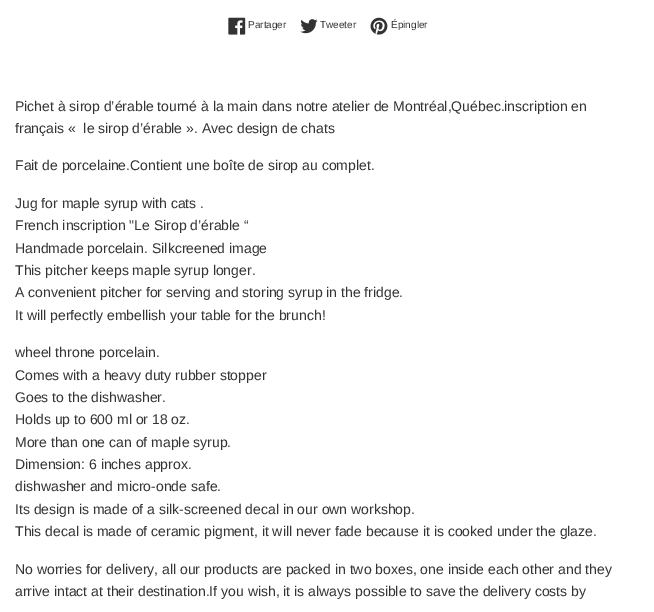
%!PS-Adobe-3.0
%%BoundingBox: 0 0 654 612
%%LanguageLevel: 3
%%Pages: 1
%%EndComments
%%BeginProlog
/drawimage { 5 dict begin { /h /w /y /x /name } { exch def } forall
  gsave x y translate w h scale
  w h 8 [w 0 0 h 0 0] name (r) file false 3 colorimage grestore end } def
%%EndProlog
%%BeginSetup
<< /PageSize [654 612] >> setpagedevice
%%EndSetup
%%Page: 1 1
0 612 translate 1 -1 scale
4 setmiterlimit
1 setgray
0 0 654 612 rectfill
(images/1.raw) 228 17 18 18 drawimage
(images/2.raw) 300 19 18 15 drawimage
(images/3.raw) 370 17 18 18 drawimage
/LiberationSans-Regular [10 0 0 -10 0 0] selectfont
0.2 setgray
248 28 moveto (Partager) show
320 28 moveto (Tweeter) show
391 28 moveto (Épingler) show
/LiberationSans-Regular [14 0 0 -14 0 0] selectfont
15 111 moveto (Pichet à sirop d’érable tourné à la main dans notre atelier de Montréal,Québec.inscription en) show
15 133 moveto (français «  le sirop d’érable ». Avec design de chats) show
15 170 moveto (Fait de porcelaine.Contient une boîte de sirop au complet.) show
15 208 moveto (Jug for maple syrup with cats .) show
15 230 moveto (French inscription "Le Sirop d’érable “) show
15 253 moveto (Handmade porcelain. Silkcreened image) show
15 275 moveto (This pitcher keeps maple syrup longer.) show
15 297 moveto (A convenient pitcher for serving and storing syrup in the fridge.) show
15 320 moveto (It will perfectly embellish your table for the brunch!) show
15 357 moveto (wheel throne porcelain.) show
15 380 moveto (Comes with a heavy duty rubber stopper) show
15 402 moveto (Goes to the dishwasher.) show
15 424 moveto (Holds up to 600 ml or 18 oz.) show
15 447 moveto (More than one can of maple syrup.) show
15 469 moveto (Dimension: 6 inches approx.) show
15 491 moveto (dishwasher and micro-onde safe.) show
15 514 moveto (Its design is made of a silk-screened decal in our own workshop.) show
15 536 moveto (This decal is made of ceramic pigment, it will never fade because it is cooked under the glaze.) show
15 574 moveto (No worries for delivery, all our products are packed in two boxes, one inside each other and they) show
15 596 moveto (arrive intact at their destination.If you wish, it is always possible to save the delivery costs by) show
showpage
%%EOF
